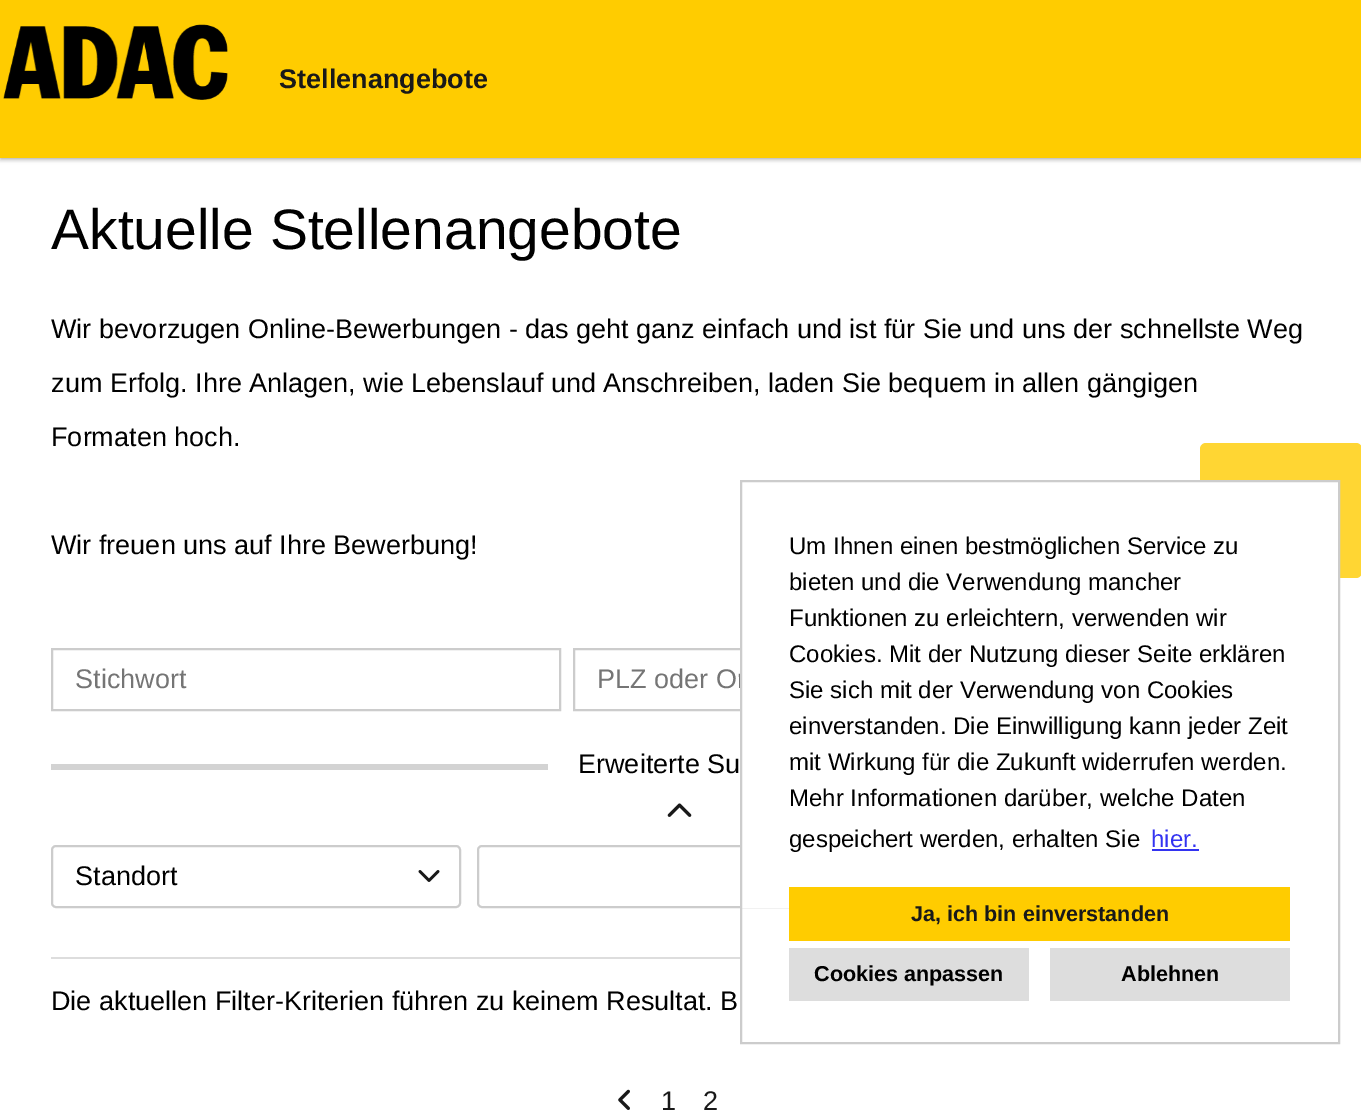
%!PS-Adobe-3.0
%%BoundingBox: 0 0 1361 1111
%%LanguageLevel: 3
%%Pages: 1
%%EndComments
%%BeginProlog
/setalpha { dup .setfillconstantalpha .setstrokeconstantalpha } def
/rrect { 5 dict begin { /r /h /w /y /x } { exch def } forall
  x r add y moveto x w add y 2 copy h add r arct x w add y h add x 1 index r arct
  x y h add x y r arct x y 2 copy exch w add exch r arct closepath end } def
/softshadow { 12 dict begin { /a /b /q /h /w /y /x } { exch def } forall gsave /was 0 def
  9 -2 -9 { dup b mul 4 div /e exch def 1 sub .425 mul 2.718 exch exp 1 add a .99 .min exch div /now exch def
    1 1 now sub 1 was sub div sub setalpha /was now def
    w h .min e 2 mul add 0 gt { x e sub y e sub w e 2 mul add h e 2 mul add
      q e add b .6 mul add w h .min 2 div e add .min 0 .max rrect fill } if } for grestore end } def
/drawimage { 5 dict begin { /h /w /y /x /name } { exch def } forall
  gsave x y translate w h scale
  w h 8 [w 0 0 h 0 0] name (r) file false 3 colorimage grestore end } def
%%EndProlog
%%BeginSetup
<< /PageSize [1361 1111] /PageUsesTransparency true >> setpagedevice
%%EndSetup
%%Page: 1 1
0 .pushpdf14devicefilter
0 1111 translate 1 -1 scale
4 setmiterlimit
1 setgray
0 0 1361 1111 rectfill
0.922 setgray
2 setlinewidth
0 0 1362 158 rectstroke
0 setgray
0 3 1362 158 0 1.5 0.16 softshadow
1 0.8 0 setrgbcolor
0 0 1361 158 rectfill
(images/1.raw) 3 24 225 76 drawimage
1 0.839 0.2 setrgbcolor
1200 443 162 135 6 rrect fill
0.8 setgray
52 649 508 61 rectstroke
574 649 306 61 rectstroke
0.827 setgray
51 764 497 6 rectfill
(images/2.raw) 667 803 25 14 drawimage
0.8 setgray
52 846 408 61 4 rrect stroke
(images/3.raw) 418 870 22 12 drawimage
478 846 408 61 4 rrect stroke
0.867 setgray
51 957 689 2 rectfill
(images/4.raw) 618 1089 12 21 drawimage
/LiberationSans-Bold [27 0 0 -27 0 0] selectfont
0.098 setgray
279 88 moveto (Stellenangebote) show
/LiberationSans-Regular [57 0 0 -57 0 0] selectfont
0 setgray
51 249 moveto (Aktuelle Stellenangebote) show
/LiberationSans-Regular [27 0 0 -27 0 0] selectfont
51 338 moveto (Wir bevorzugen Online-Bewerbungen - das geht ganz einfach und ist für Sie und uns der schnellste Weg) show
51 392 moveto (zum Erfolg. Ihre Anlagen, wie Lebenslauf und Anschreiben, laden Sie bequem in allen gängigen) show
51 446 moveto (Formaten hoch.) show
51 554 moveto (Wir freuen uns auf Ihre Bewerbung!) show
0.459 setgray
75 688 moveto (Stichwort) show
597 688 moveto (PLZ oder Or) show
0 setgray
578 773 moveto (Erweiterte Su) show
75 885 moveto (Standort) show
51 1010 moveto (Die aktuellen Filter-Kriterien führen zu keinem Resultat. B) show
0.098 setgray
661 1110 moveto (1) show
703 1110 moveto (2) show
1 setgray
742 482 596 426 rectfill
0.8 setgray
741 481 598 562 rectstroke
/LiberationSans-Regular [24 0 0 -24 0 0] selectfont
0 setgray
789 554 moveto (Um Ihnen einen bestmöglichen Service zu) show
789 590 moveto (bieten und die Verwendung mancher) show
789 626 moveto (Funktionen zu erleichtern, verwenden wir) show
789 662 moveto (Cookies. Mit der Nutzung dieser Seite erklären) show
789 698 moveto (Sie sich mit der Verwendung von Cookies) show
789 734 moveto (einverstanden. Die Einwilligung kann jeder Zeit) show
789 770 moveto (mit Wirkung für die Zukunft widerrufen werden.) show
789 806 moveto (Mehr Informationen darüber, welche Daten) show
789 847 moveto (gespeichert werden, erhalten Sie) show
0.2 0.2 0.945 setrgbcolor
1151 847 moveto (hier.) show
1152 849 47 2 rectfill
1 0.8 0 setrgbcolor
789 887 501 54 rectfill
/LiberationSans-Bold [21.6 0 0 -21.6 0 0] selectfont
0.098 setgray
911 921 moveto (Ja, ich bin einverstanden) show
0.867 setgray
789 948 240 53 rectfill
0 setgray
814 981 moveto (Cookies anpassen) show
0.867 setgray
1050 948 240 53 rectfill
0 setgray
1121 981 moveto (Ablehnen) show
.poppdf14devicefilter showpage
%%EOF
